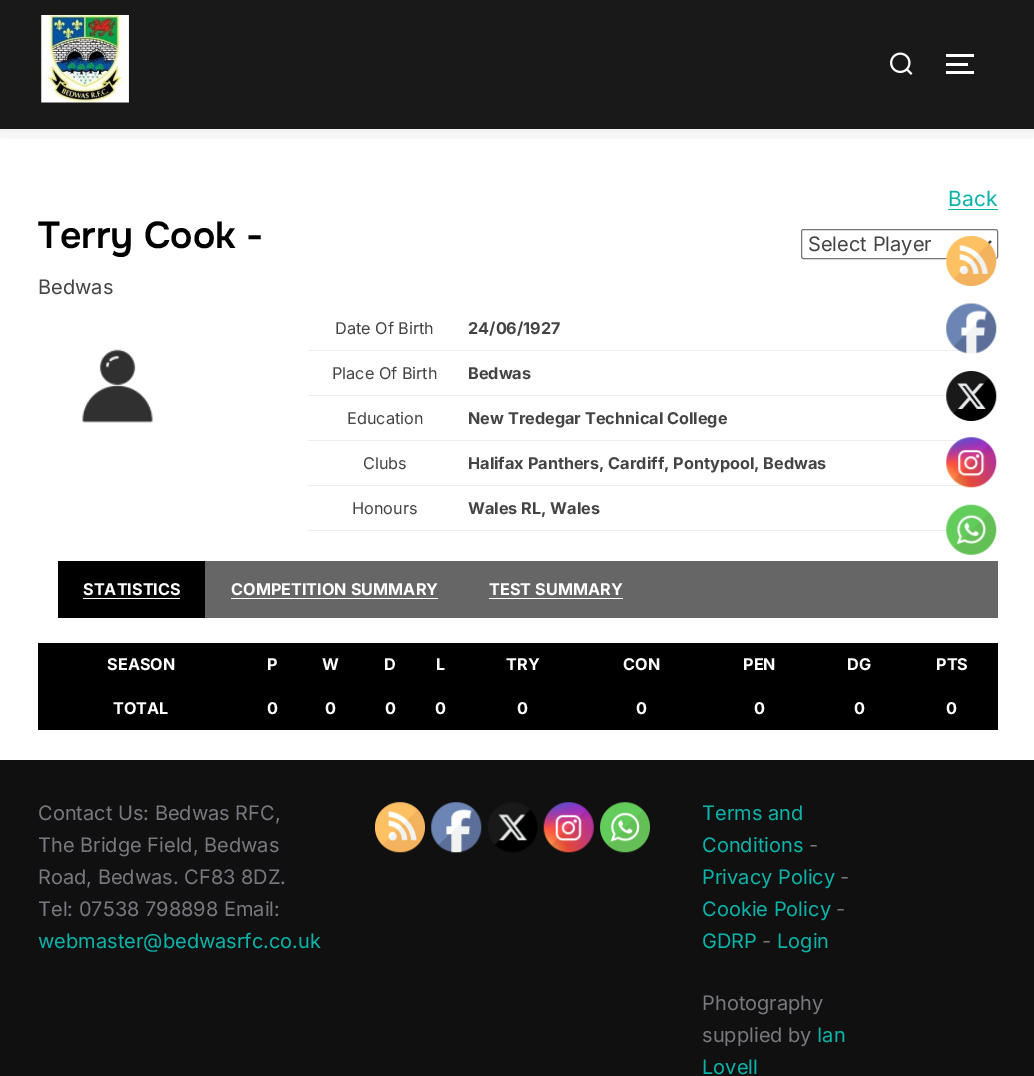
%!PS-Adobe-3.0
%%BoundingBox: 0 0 1034 1076
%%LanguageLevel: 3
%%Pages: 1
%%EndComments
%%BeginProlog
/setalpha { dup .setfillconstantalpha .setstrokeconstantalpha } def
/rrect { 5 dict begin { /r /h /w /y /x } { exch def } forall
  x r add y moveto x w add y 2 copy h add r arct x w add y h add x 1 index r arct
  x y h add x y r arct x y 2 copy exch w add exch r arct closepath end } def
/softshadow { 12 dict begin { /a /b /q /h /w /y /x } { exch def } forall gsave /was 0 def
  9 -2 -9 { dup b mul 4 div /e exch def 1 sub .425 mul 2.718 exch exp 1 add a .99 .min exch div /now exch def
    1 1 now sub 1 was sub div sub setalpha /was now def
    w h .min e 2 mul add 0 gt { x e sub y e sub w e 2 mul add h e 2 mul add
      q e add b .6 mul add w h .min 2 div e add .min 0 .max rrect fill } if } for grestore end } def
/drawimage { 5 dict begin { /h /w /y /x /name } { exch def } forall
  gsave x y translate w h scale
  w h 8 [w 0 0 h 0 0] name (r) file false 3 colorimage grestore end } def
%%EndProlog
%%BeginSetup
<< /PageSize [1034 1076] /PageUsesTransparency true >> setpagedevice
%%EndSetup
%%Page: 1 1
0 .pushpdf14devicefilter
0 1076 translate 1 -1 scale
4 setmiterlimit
1 setgray
0 0 1034 1076 rectfill
gsave
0 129 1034 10 rectclip
0 setgray
-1 -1 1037 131 0 11 0.1 softshadow
grestore
0.9 setalpha
0 setgray
0 0 1034 129 rectfill
1 setalpha
(images/1.raw) 41 15 88 88 drawimage
(images/2.raw) 890 52 23 23 drawimage
1 setgray
946 54 28 3 rectfill
946 63 22 3 rectfill
946 71 28 3 rectfill
0.043 0.706 0.667 setrgbcolor
948 209 50 1 rectfill
0.463 setgray
801.5 229.5 196 29 2 rrect stroke
0.267 setgray
2.5 setlinewidth
newpath 981 241 moveto 986 246 lineto 991 241 lineto stroke
(images/3.raw) 82 349 71 74 drawimage
0.933 setgray
308 350 654 1 rectfill
308 395 639 1 rectfill
308 440 654 1 rectfill
308 485 673 1 rectfill
308 530 640 1 rectfill
0.4 setgray
205 561 793 57 rectfill
0 setgray
58 561 147 57 rectfill
1 setgray
83 598 97 1 rectfill
231 598 207 1 rectfill
489 598 134 1 rectfill
0 setgray
38 643 960 87 rectfill
0.063 setgray
0 760 1034 316 rectfill
(images/4.raw) 375 802 50 51 drawimage
(images/5.raw) 431 802 51 51 drawimage
(images/6.raw) 487 802 51 51 drawimage
(images/7.raw) 543 802 51 51 drawimage
(images/8.raw) 600 802 50 51 drawimage
(images/9.raw) 946 236 51 50 drawimage
(images/10.raw) 946 303 51 51 drawimage
(images/11.raw) 946 371 51 50 drawimage
(images/12.raw) 946 437 51 51 drawimage
(images/13.raw) 946 504 51 51 drawimage
/Onest-SemiBold [37.5 0 0 -37.5 0 0] selectfont
0 setgray
38 248 moveto (Terry Cook -) show
/Inter-Regular [20 0 0 -20 0 0] selectfont
0.267 setgray
38 294 moveto (Bedwas) show
/Inter-Regular [21 0 0 -21 0 0] selectfont
0.043 0.706 0.667 setrgbcolor
948 206 moveto (Back) show
/Inter-Regular [20 0 0 -20 0 0] selectfont
0.267 setgray
808 251 moveto (Select Player) show
/Inter-Regular [16.25 0 0 -16.25 0 0] selectfont
335 334 moveto (Date Of Birth) show
/Inter-Bold [16.25 0 0 -16.25 0 0] selectfont
468 334 moveto (24/06/1927) show
/Inter-Regular [16.25 0 0 -16.25 0 0] selectfont
332 379 moveto (Place Of Birth) show
/Inter-Bold [16.25 0 0 -16.25 0 0] selectfont
468 379 moveto (Bedwas) show
/Inter-Regular [16.25 0 0 -16.25 0 0] selectfont
347 424 moveto (Education) show
/Inter-Bold [16.25 0 0 -16.25 0 0] selectfont
468 424 moveto (New Tredegar Technical College) show
/Inter-Regular [16.25 0 0 -16.25 0 0] selectfont
363 469 moveto (Clubs) show
/Inter-Bold [16.25 0 0 -16.25 0 0] selectfont
468 469 moveto (Halifax Panthers, Cardiff, Pontypool, Bedwas) show
/Inter-Regular [16.25 0 0 -16.25 0 0] selectfont
352 514 moveto (Honours) show
/Inter-Bold [16.25 0 0 -16.25 0 0] selectfont
468 514 moveto (Wales RL, Wales) show
1 setgray
83 595 moveto (STATISTICS) show
231 595 moveto (COMPETITION SUMMARY) show
489 595 moveto (TEST SUMMARY) show
107 670 moveto (SEASON) show
267 670 moveto (P) show
322 670 moveto (W) show
384 670 moveto (D) show
436 670 moveto (L) show
506 670 moveto (TRY) show
623 670 moveto (CON) show
743 670 moveto (PEN) show
847 670 moveto (DG) show
936 670 moveto (PTS) show
113 714 moveto (TOTAL) show
267 714 moveto (0) show
325 714 moveto (0) show
385 714 moveto (0) show
435 714 moveto (0) show
517 714 moveto (0) show
636 714 moveto (0) show
754 714 moveto (0) show
854 714 moveto (0) show
946 714 moveto (0) show
/Inter-Regular [20 0 0 -20 0 0] selectfont
0.471 0.471 0.498 setrgbcolor
38 820 moveto (Contact Us: Bedwas RFC,) show
38 852 moveto (The Bridge Field, Bedwas) show
38 884 moveto (Road, Bedwas. CF83 8DZ.) show
38 916 moveto (Tel: 07538 798898 Email:) show
0.043 0.706 0.667 setrgbcolor
38 948 moveto (webmaster@bedwasrfc.co.uk) show
702 820 moveto (Terms and) show
702 852 moveto (Conditions) show
0.471 0.471 0.498 setrgbcolor
809 852 moveto (-) show
0.043 0.706 0.667 setrgbcolor
702 884 moveto (Privacy Policy) show
0.471 0.471 0.498 setrgbcolor
840 884 moveto (-) show
0.043 0.706 0.667 setrgbcolor
702 916 moveto (Cookie Policy) show
0.471 0.471 0.498 setrgbcolor
836 916 moveto (-) show
0.043 0.706 0.667 setrgbcolor
702 948 moveto (GDRP) show
0.471 0.471 0.498 setrgbcolor
762 948 moveto (-) show
0.043 0.706 0.667 setrgbcolor
777 948 moveto (Login) show
0.471 0.471 0.498 setrgbcolor
702 1010 moveto (Photography) show
702 1042 moveto (supplied by) show
0.043 0.706 0.667 setrgbcolor
817 1042 moveto (Ian) show
702 1074 moveto (Lovell) show
.poppdf14devicefilter showpage
%%EOF
